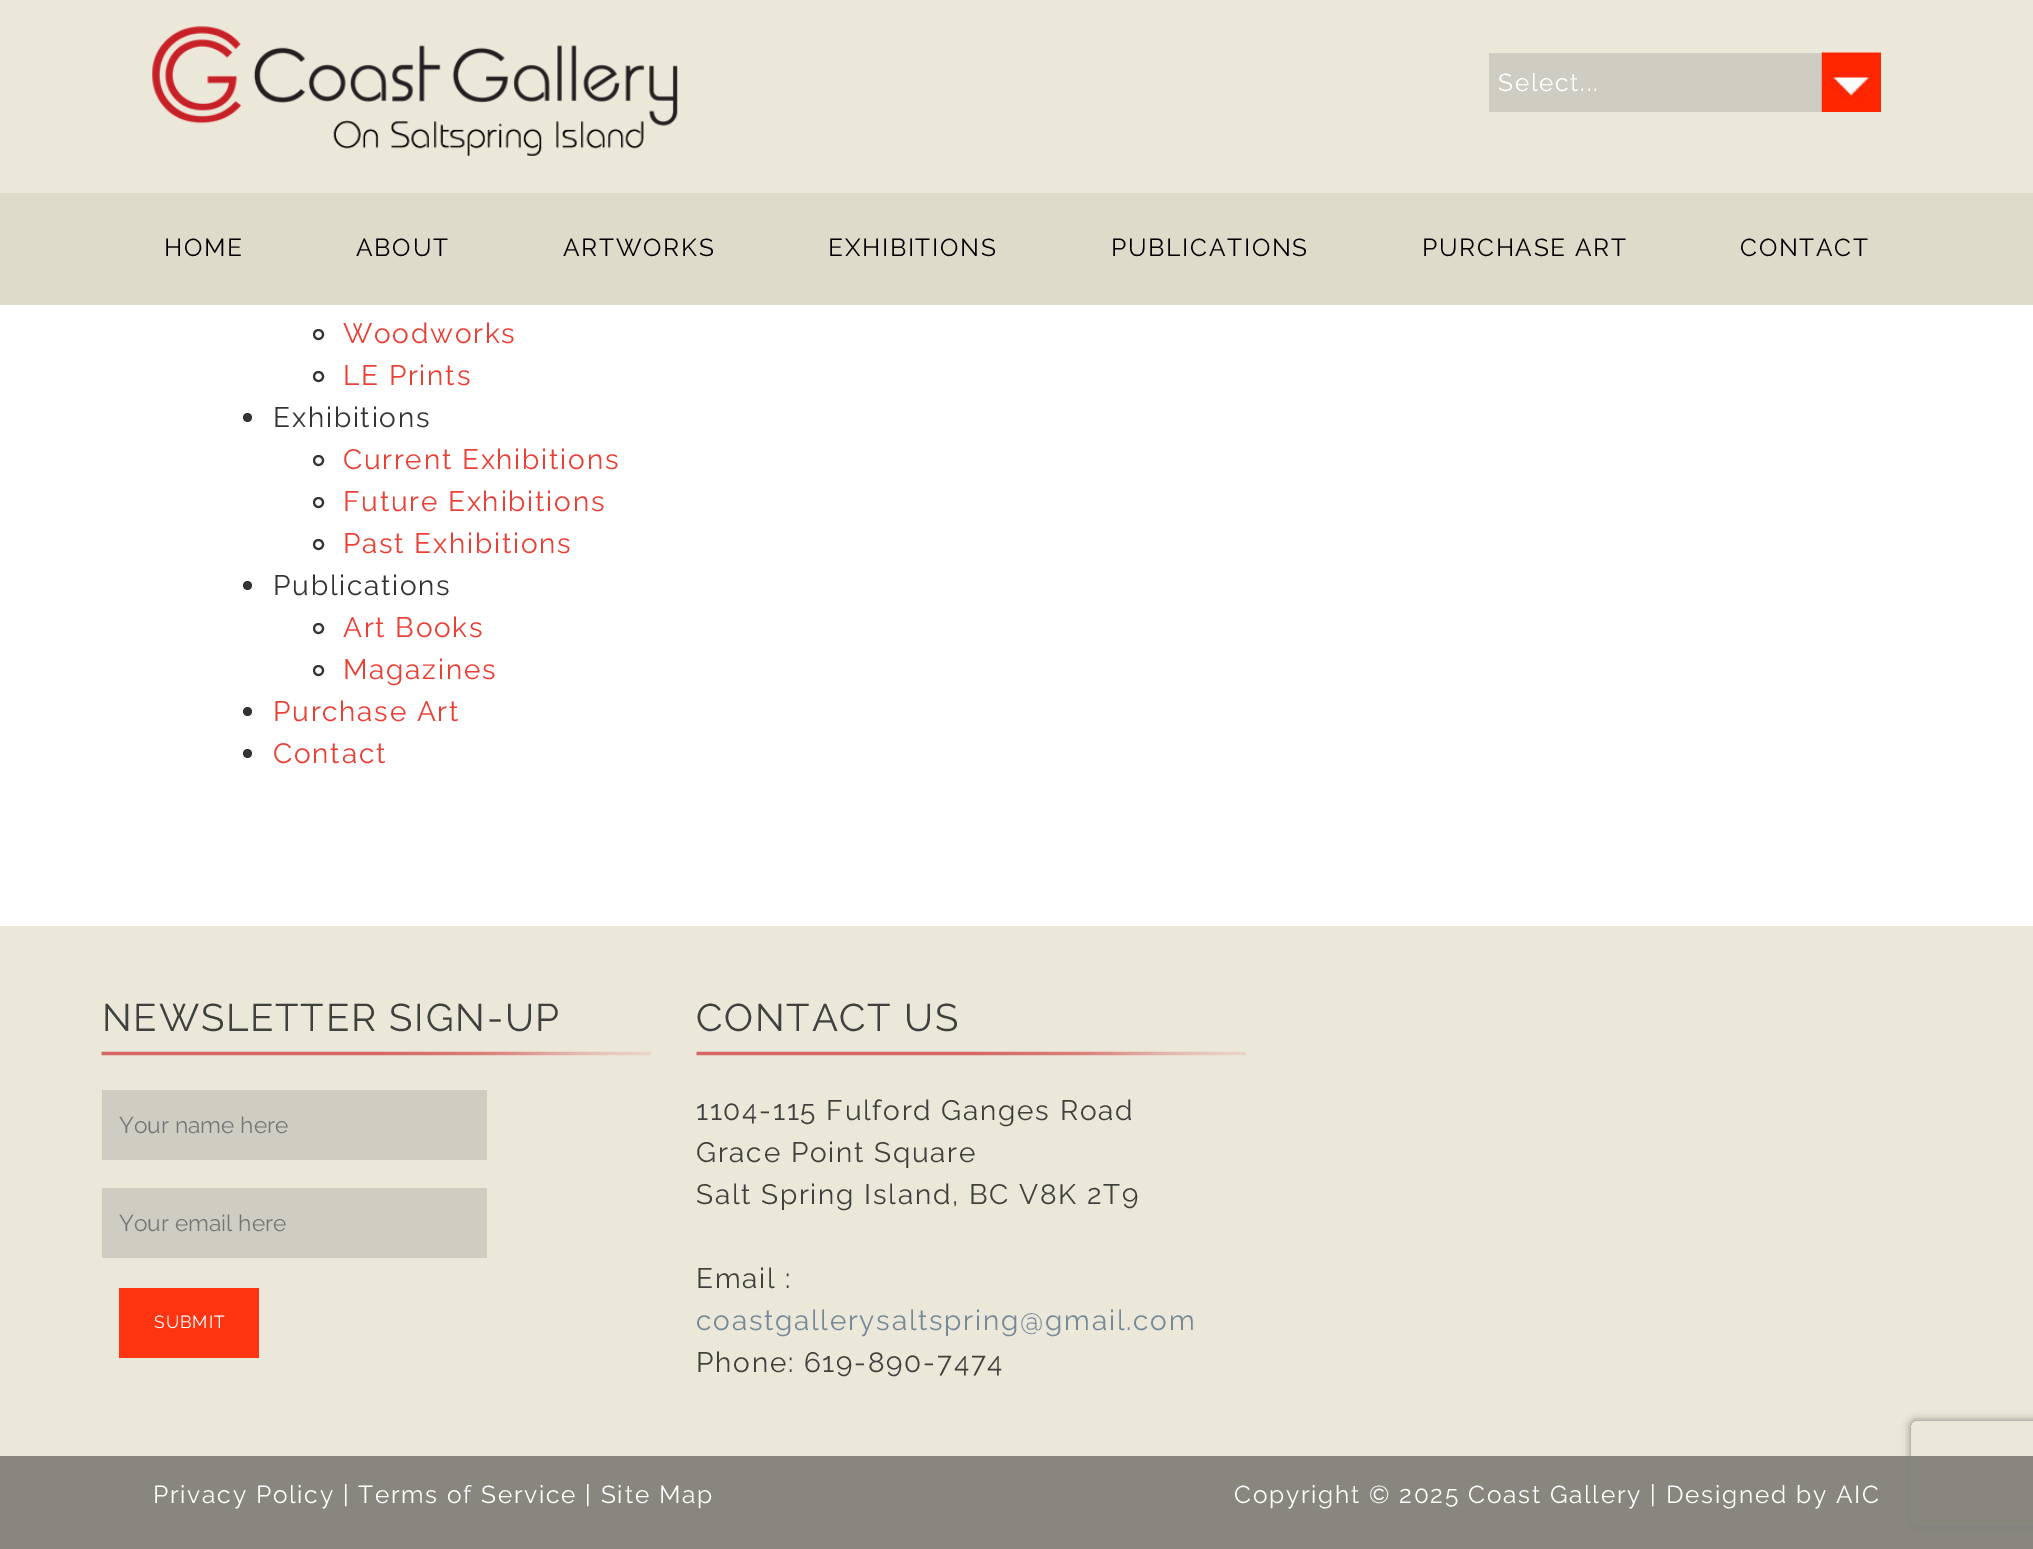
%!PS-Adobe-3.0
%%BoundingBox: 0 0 2033 1549
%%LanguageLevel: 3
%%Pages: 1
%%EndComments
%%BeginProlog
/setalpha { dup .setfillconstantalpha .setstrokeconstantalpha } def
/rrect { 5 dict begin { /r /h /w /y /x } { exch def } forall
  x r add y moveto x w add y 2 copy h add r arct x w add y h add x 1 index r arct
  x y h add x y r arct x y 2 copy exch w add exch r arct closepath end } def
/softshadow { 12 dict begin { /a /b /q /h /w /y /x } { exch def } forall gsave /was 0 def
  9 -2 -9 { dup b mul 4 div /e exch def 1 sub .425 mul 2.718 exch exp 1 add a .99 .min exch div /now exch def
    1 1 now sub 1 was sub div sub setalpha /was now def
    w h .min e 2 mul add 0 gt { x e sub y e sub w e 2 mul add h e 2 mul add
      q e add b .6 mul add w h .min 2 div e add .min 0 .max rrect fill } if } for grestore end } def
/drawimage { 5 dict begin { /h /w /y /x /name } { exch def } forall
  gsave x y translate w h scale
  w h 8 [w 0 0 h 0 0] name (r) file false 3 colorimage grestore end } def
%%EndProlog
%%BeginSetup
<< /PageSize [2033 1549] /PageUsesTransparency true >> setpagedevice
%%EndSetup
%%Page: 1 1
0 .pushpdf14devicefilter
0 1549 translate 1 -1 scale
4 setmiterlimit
1 setgray
0 0 2033 1549 rectfill
0.925 0.91 0.851 setrgbcolor
0 0 2033 193 rectfill
(images/1.raw) 152 26 526 130 drawimage
0.812 0.804 0.761 setrgbcolor
1489 53 333 59 rectfill
(images/2.raw) 1821 52 60 60 drawimage
0.875 0.859 0.796 setrgbcolor
0 193 2033 112 rectfill
0.2 setgray
2 setlinewidth
newpath 318.5 334.5 4.5 0 360 arc closepath stroke
newpath 318.5 376.5 4.5 0 360 arc closepath stroke
newpath 247.5 417.5 4.5 0 360 arc closepath fill
newpath 318.5 460.5 4.5 0 360 arc closepath stroke
newpath 318.5 502.5 4.5 0 360 arc closepath stroke
newpath 318.5 544.5 4.5 0 360 arc closepath stroke
newpath 247.5 585.5 4.5 0 360 arc closepath fill
newpath 318.5 628.5 4.5 0 360 arc closepath stroke
newpath 318.5 670.5 4.5 0 360 arc closepath stroke
newpath 247.5 711.5 4.5 0 360 arc closepath fill
newpath 247.5 753.5 4.5 0 360 arc closepath fill
0.925 0.91 0.851 setrgbcolor
0 926 2033 530 rectfill
(images/3.raw) 101 1051 550 5 drawimage
0.812 0.804 0.761 setrgbcolor
102 1090 385 70 rectfill
102 1188 385 70 rectfill
1 0.208 0.071 setrgbcolor
119 1288 140 70 rectfill
(images/3.raw) 696 1051 550 5 drawimage
0.533 0.525 0.49 setrgbcolor
0 1456 2033 93 rectfill
gsave
newpath 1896 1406 moveto 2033 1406 lineto 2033 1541 lineto 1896 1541 lineto closepath 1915 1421 moveto 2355 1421 lineto 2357 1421 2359 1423 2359 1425 curveto 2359 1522 lineto 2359 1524 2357 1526 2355 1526 curveto 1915 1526 lineto 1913 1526 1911 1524 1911 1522 curveto 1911 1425 lineto 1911 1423 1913 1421 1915 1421 curveto closepath eoclip newpath
0.502 setgray
1911 1421 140 105 4 4.5 1 softshadow
grestore
/Raleway-Regular [24.5 0 0 -24.5 0 0] selectfont
1 setgray
1498 91 moveto 1.75 0 (Select...) ashow
0 setgray
164 256 moveto 1.75 0 (HOME) ashow
356 256 moveto 1.75 0 (ABOUT) ashow
563 256 moveto 1.75 0 (ARTWORKS) ashow
828 256 moveto 1.75 0 (EXHIBITIONS) ashow
1111 256 moveto 1.75 0 (PUBLICATIONS) ashow
1422 256 moveto 1.75 0 (PURCHASE ART) ashow
1740 256 moveto 1.75 0 (CONTACT) ashow
/Raleway-Regular [28 0 0 -28 0 0] selectfont
0.918 0.247 0.204 setrgbcolor
343 343 moveto 1.75 0 (Woodworks) ashow
343 385 moveto 1.75 0 (LE Prints) ashow
0.2 setgray
273 427 moveto 1.75 0 (Exhibitions) ashow
0.918 0.247 0.204 setrgbcolor
343 469 moveto 1.75 0 (Current Exhibitions) ashow
343 511 moveto 1.75 0 (Future Exhibitions) ashow
343 553 moveto 1.75 0 (Past Exhibitions) ashow
0.2 setgray
273 595 moveto 1.75 0 (Publications) ashow
0.918 0.247 0.204 setrgbcolor
343 637 moveto 1.75 0 (Art Books) ashow
343 679 moveto 1.75 0 (Magazines) ashow
273 721 moveto 1.75 0 (Purchase Art) ashow
273 763 moveto 1.75 0 (Contact) ashow
/Raleway-Regular [38.5 0 0 -38.5 0 0] selectfont
0.247 0.255 0.243 setrgbcolor
102 1031 moveto 1.75 0 (NEWSLETTER SIGN-UP) ashow
/Raleway-Regular [22.75 0 0 -22.75 0 0] selectfont
0.459 setgray
119 1133 moveto (Your name here) show
119 1231 moveto (Your email here) show
/Raleway-Regular [17.5 0 0 -17.5 0 0] selectfont
1 setgray
154 1328 moveto 1 0 (SUBMIT) ashow
/Raleway-Regular [38.5 0 0 -38.5 0 0] selectfont
0.247 0.255 0.243 setrgbcolor
696 1031 moveto 1.75 0 (CONTACT US) ashow
/Raleway-Regular [28 0 0 -28 0 0] selectfont
696 1120 moveto 1.75 0 (1104-115 Fulford Ganges Road) ashow
696 1162 moveto 1.75 0 (Grace Point Square) ashow
696 1204 moveto 1.75 0 (Salt Spring Island, BC V8K 2T9) ashow
696 1288 moveto 1.75 0 (Email :) ashow
0.459 0.537 0.592 setrgbcolor
696 1330 moveto 1.75 0 (coastgallerysaltspring@gmail.com) ashow
0.247 0.255 0.243 setrgbcolor
696 1372 moveto 1.75 0 (Phone: 619-890-7474) ashow
/Raleway-Regular [24.5 0 0 -24.5 0 0] selectfont
1 setgray
153 1503 moveto 1.75 0 (Privacy Policy | Terms of Service | Site Map) ashow
1234 1503 moveto 1.75 0 (Copyright © 2025 Coast Gallery | Designed by AIC) ashow
.poppdf14devicefilter showpage
%%EOF
